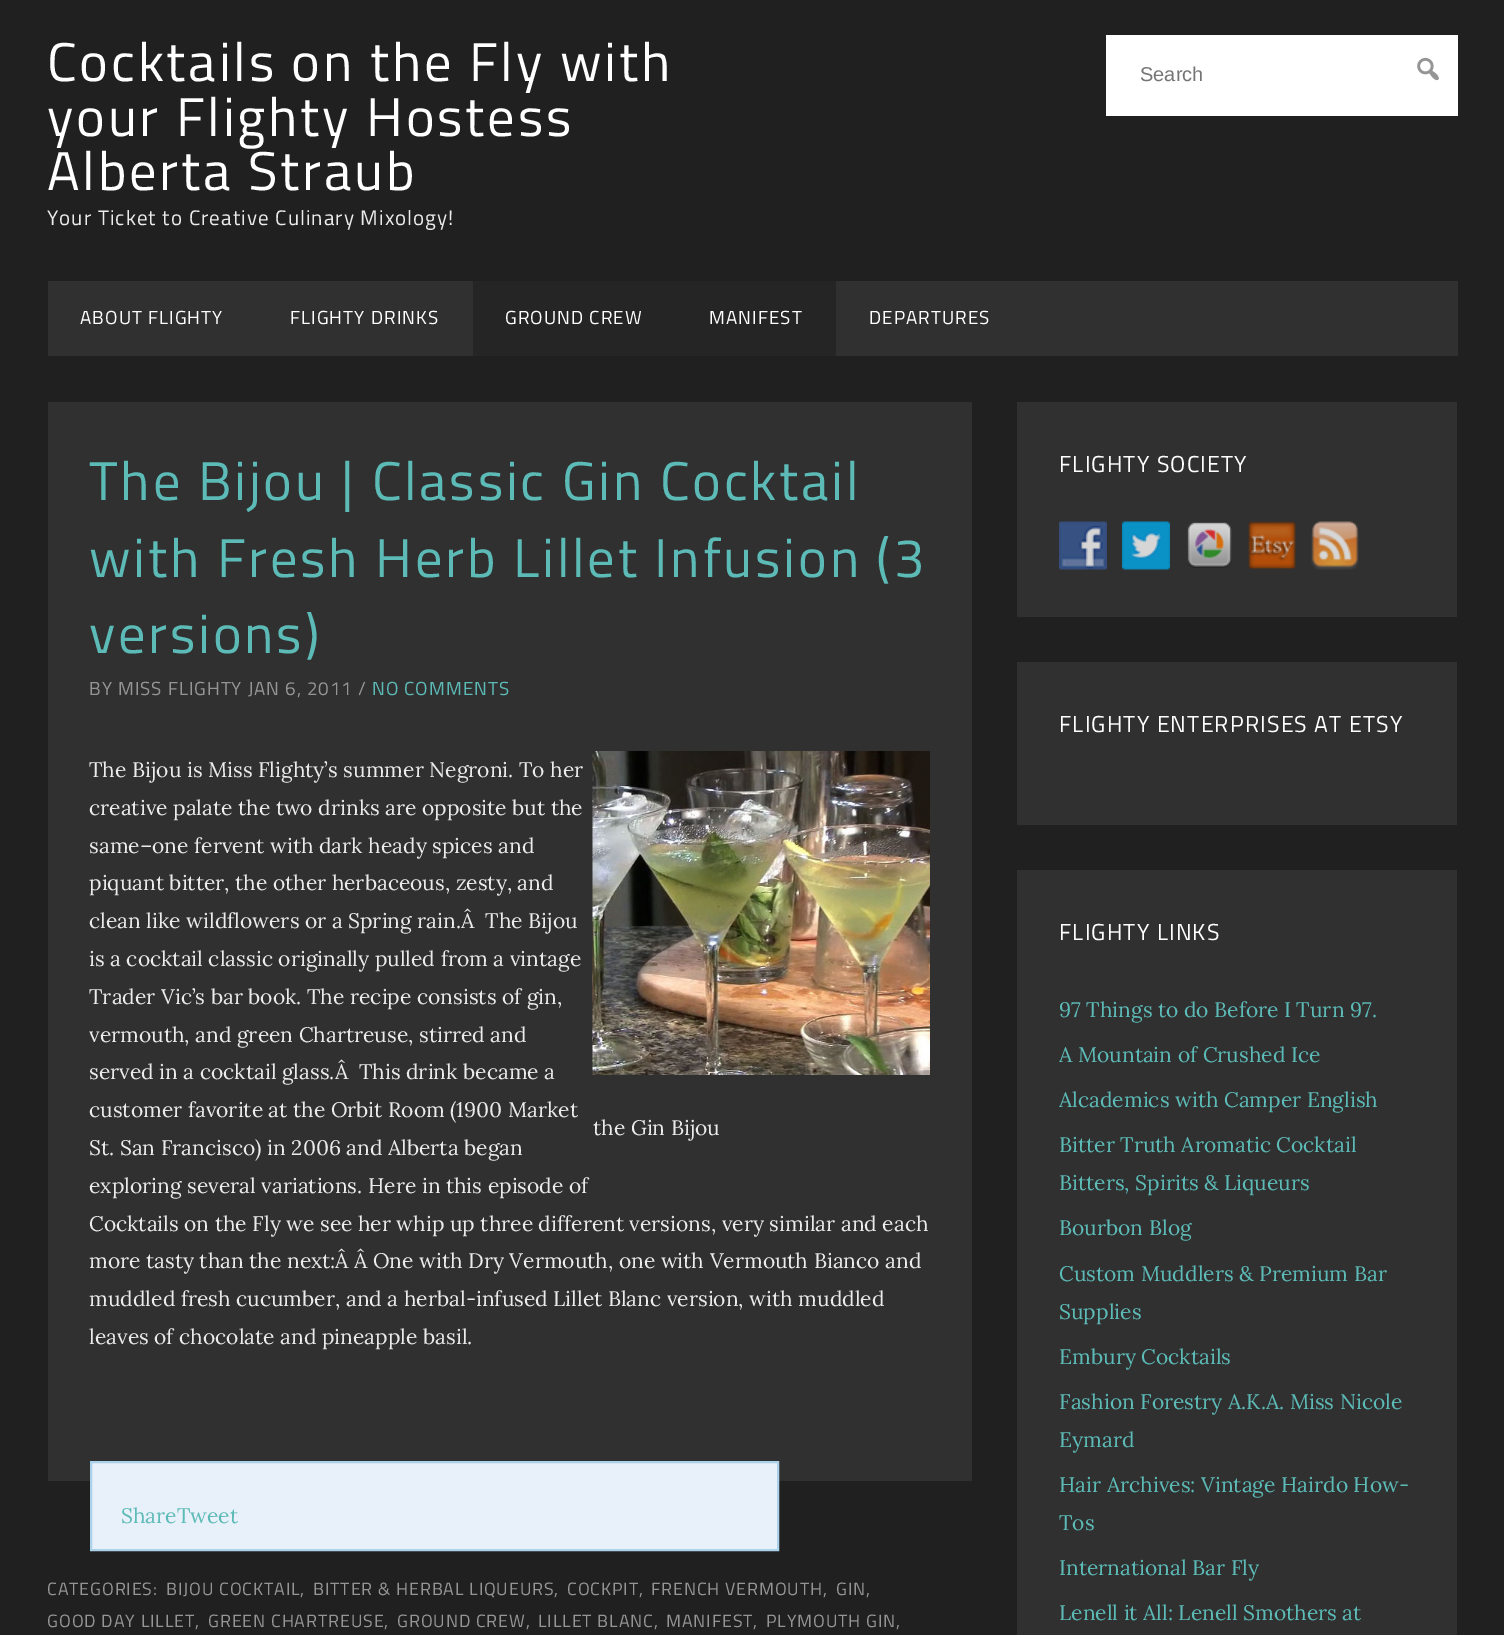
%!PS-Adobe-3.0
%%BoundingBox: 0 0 1504 1635
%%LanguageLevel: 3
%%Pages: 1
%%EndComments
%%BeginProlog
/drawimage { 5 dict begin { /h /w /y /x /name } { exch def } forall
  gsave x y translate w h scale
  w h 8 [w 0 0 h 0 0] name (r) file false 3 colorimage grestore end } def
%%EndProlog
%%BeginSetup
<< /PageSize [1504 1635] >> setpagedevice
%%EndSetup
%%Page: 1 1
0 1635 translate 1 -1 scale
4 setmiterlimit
0.125 setgray
0 0 1504 1635 rectfill
1 setgray
1106 35 352 81 rectfill
(images/1.raw) 1417 57 22 24 drawimage
0.188 setgray
48 281 1410 75 rectfill
0.145 setgray
473 281 363 75 rectfill
0.188 setgray
48 402 924 1079 rectfill
(images/2.raw) 592 751 338 324 drawimage
0.91 0.941 0.976 setrgbcolor
newpath 91 1462 moveto 778 1462 lineto 778 1550 lineto 91 1550 lineto closepath gsave fill grestore
0.671 0.824 0.914 setrgbcolor
2 setlinewidth
stroke
0.188 setgray
1017 402 440 215 rectfill
(images/3.raw) 1059 521 48 49 drawimage
(images/4.raw) 1122 521 48 49 drawimage
(images/5.raw) 1187 522 45 46 drawimage
(images/6.raw) 1248 521 48 49 drawimage
(images/7.raw) 1311 521 48 49 drawimage
1017 662 440 163 rectfill
1017 870 440 765 rectfill
/TitilliumWeb-Regular [54.6 0 0 -54.6 0 0] selectfont
1 setgray
47 81 moveto 2.75 0 (Cocktails on the Fly with) ashow
47 136 moveto 2.75 0 (your Flighty Hostess) ashow
47 190 moveto 2.75 0 (Alberta Straub) ashow
/TitilliumWeb-Regular [21 0 0 -21 0 0] selectfont
0.922 setgray
47 225 moveto 1.05 0 (Your Ticket to Creative Culinary Mixology!) ashow
/LiberationSans-Regular [20 0 0 -20 0 0] selectfont
0.459 setgray
1140 81 moveto (Search) show
/TitilliumWeb-Regular [18.9 0 0 -18.9 0 0] selectfont
1 setgray
80 324 moveto 1.05 0 (ABOUT FLIGHTY) ashow
290 324 moveto 1.05 0 (FLIGHTY DRINKS) ashow
505 324 moveto 1.05 0 (GROUND CREW) ashow
709 324 moveto 1.05 0 (MANIFEST) ashow
869 324 moveto 1.05 0 (DEPARTURES) ashow
/TitilliumWeb-Regular [54.6 0 0 -54.6 0 0] selectfont
0.361 0.733 0.718 setrgbcolor
89 500 moveto 2.75 0 (The Bijou | Classic Gin Cocktail) ashow
89 577 moveto 2.75 0 (with Fresh Herb Lillet Infusion \(3) ashow
89 653 moveto 2.75 0 (versions\)) ashow
/TitilliumWeb-Regular [18.9 0 0 -18.9 0 0] selectfont
0.584 setgray
89 695 moveto 0.95 0 (BY MISS FLIGHTY JAN 6, 2011 /) ashow
0.361 0.733 0.718 setrgbcolor
372 695 moveto 0.95 0 (NO COMMENTS) ashow
/Lora-Regular [21 0 0 -21 0 0] selectfont
0.922 setgray
89 777 moveto (The Bijou is Miss Flighty’s summer Negroni. To her) show
89 815 moveto (creative palate the two drinks are opposite but the) show
89 853 moveto (same–one fervent with dark heady spices and) show
89 890 moveto (piquant bitter, the other herbaceous, zesty, and) show
89 928 moveto (clean like wildflowers or a Spring rain.Â  The Bijou) show
89 966 moveto (is a cocktail classic originally pulled from a vintage) show
89 1004 moveto (Trader Vic’s bar book. The recipe consists of gin,) show
89 1042 moveto (vermouth, and green Chartreuse, stirred and) show
89 1079 moveto (served in a cocktail glass.Â  This drink became a) show
89 1117 moveto (customer favorite at the Orbit Room \(1900 Market) show
89 1155 moveto (St. San Francisco\) in 2006 and Alberta began) show
89 1193 moveto (exploring several variations. Here in this episode of) show
89 1231 moveto (Cocktails on the Fly we see her whip up three different versions, very similar and each) show
89 1268 moveto (more tasty than the next:Â Â One with Dry Vermouth, one with Vermouth Bianco and) show
89 1306 moveto (muddled fresh cucumber, and a herbal-infused Lillet Blanc version, with muddled) show
89 1344 moveto (leaves of chocolate and pineapple basil.) show
593 1135 moveto (the Gin Bijou) show
0.361 0.733 0.718 setrgbcolor
121 1523 moveto (ShareTweet) show
/TitilliumWeb-Regular [17.8 0 0 -17.8 0 0] selectfont
0.584 setgray
47 1595 moveto 0.9 0 (CATEGORIES:) ashow
166 1595 moveto 0.9 0 (BIJOU COCKTAIL,) ashow
313 1595 moveto 0.9 0 (BITTER & HERBAL LIQUEURS,) ashow
567 1595 moveto 0.9 0 (COCKPIT,) ashow
651 1595 moveto 0.9 0 (FRENCH VERMOUTH,) ashow
836 1595 moveto 0.9 0 (GIN,) ashow
47 1627 moveto 0.9 0 (GOOD DAY LILLET,) ashow
208 1627 moveto 0.9 0 (GREEN CHARTREUSE,) ashow
397 1627 moveto 0.9 0 (GROUND CREW,) ashow
538 1627 moveto 0.9 0 (LILLET BLANC,) ashow
666 1627 moveto 0.9 0 (MANIFEST,) ashow
766 1627 moveto 0.9 0 (PLYMOUTH GIN,) ashow
/TitilliumWeb-Regular [23.1 0 0 -23.1 0 0] selectfont
1 setgray
1059 472 moveto 1.15 0 (FLIGHTY SOCIETY) ashow
1059 732 moveto 1.15 0 (FLIGHTY ENTERPRISES AT ETSY) ashow
1059 940 moveto 1.15 0 (FLIGHTY LINKS) ashow
/Lora-Regular [21 0 0 -21 0 0] selectfont
0.361 0.733 0.718 setrgbcolor
1059 1017 moveto (97 Things to do Before I Turn 97.) show
1059 1062 moveto (A Mountain of Crushed Ice) show
1059 1107 moveto (Alcademics with Camper English) show
1059 1152 moveto (Bitter Truth Aromatic Cocktail) show
1059 1190 moveto (Bitters, Spirits & Liqueurs) show
1059 1235 moveto (Bourbon Blog) show
1059 1281 moveto (Custom Muddlers & Premium Bar) show
1059 1319 moveto (Supplies) show
1059 1364 moveto (Embury Cocktails) show
1059 1409 moveto (Fashion Forestry A.K.A. Miss Nicole) show
1059 1447 moveto (Eymard) show
1059 1492 moveto (Hair Archives: Vintage Hairdo How-) show
1059 1530 moveto (Tos) show
1059 1575 moveto (International Bar Fly) show
1059 1620 moveto (Lenell it All: Lenell Smothers at) show
showpage
%%EOF
